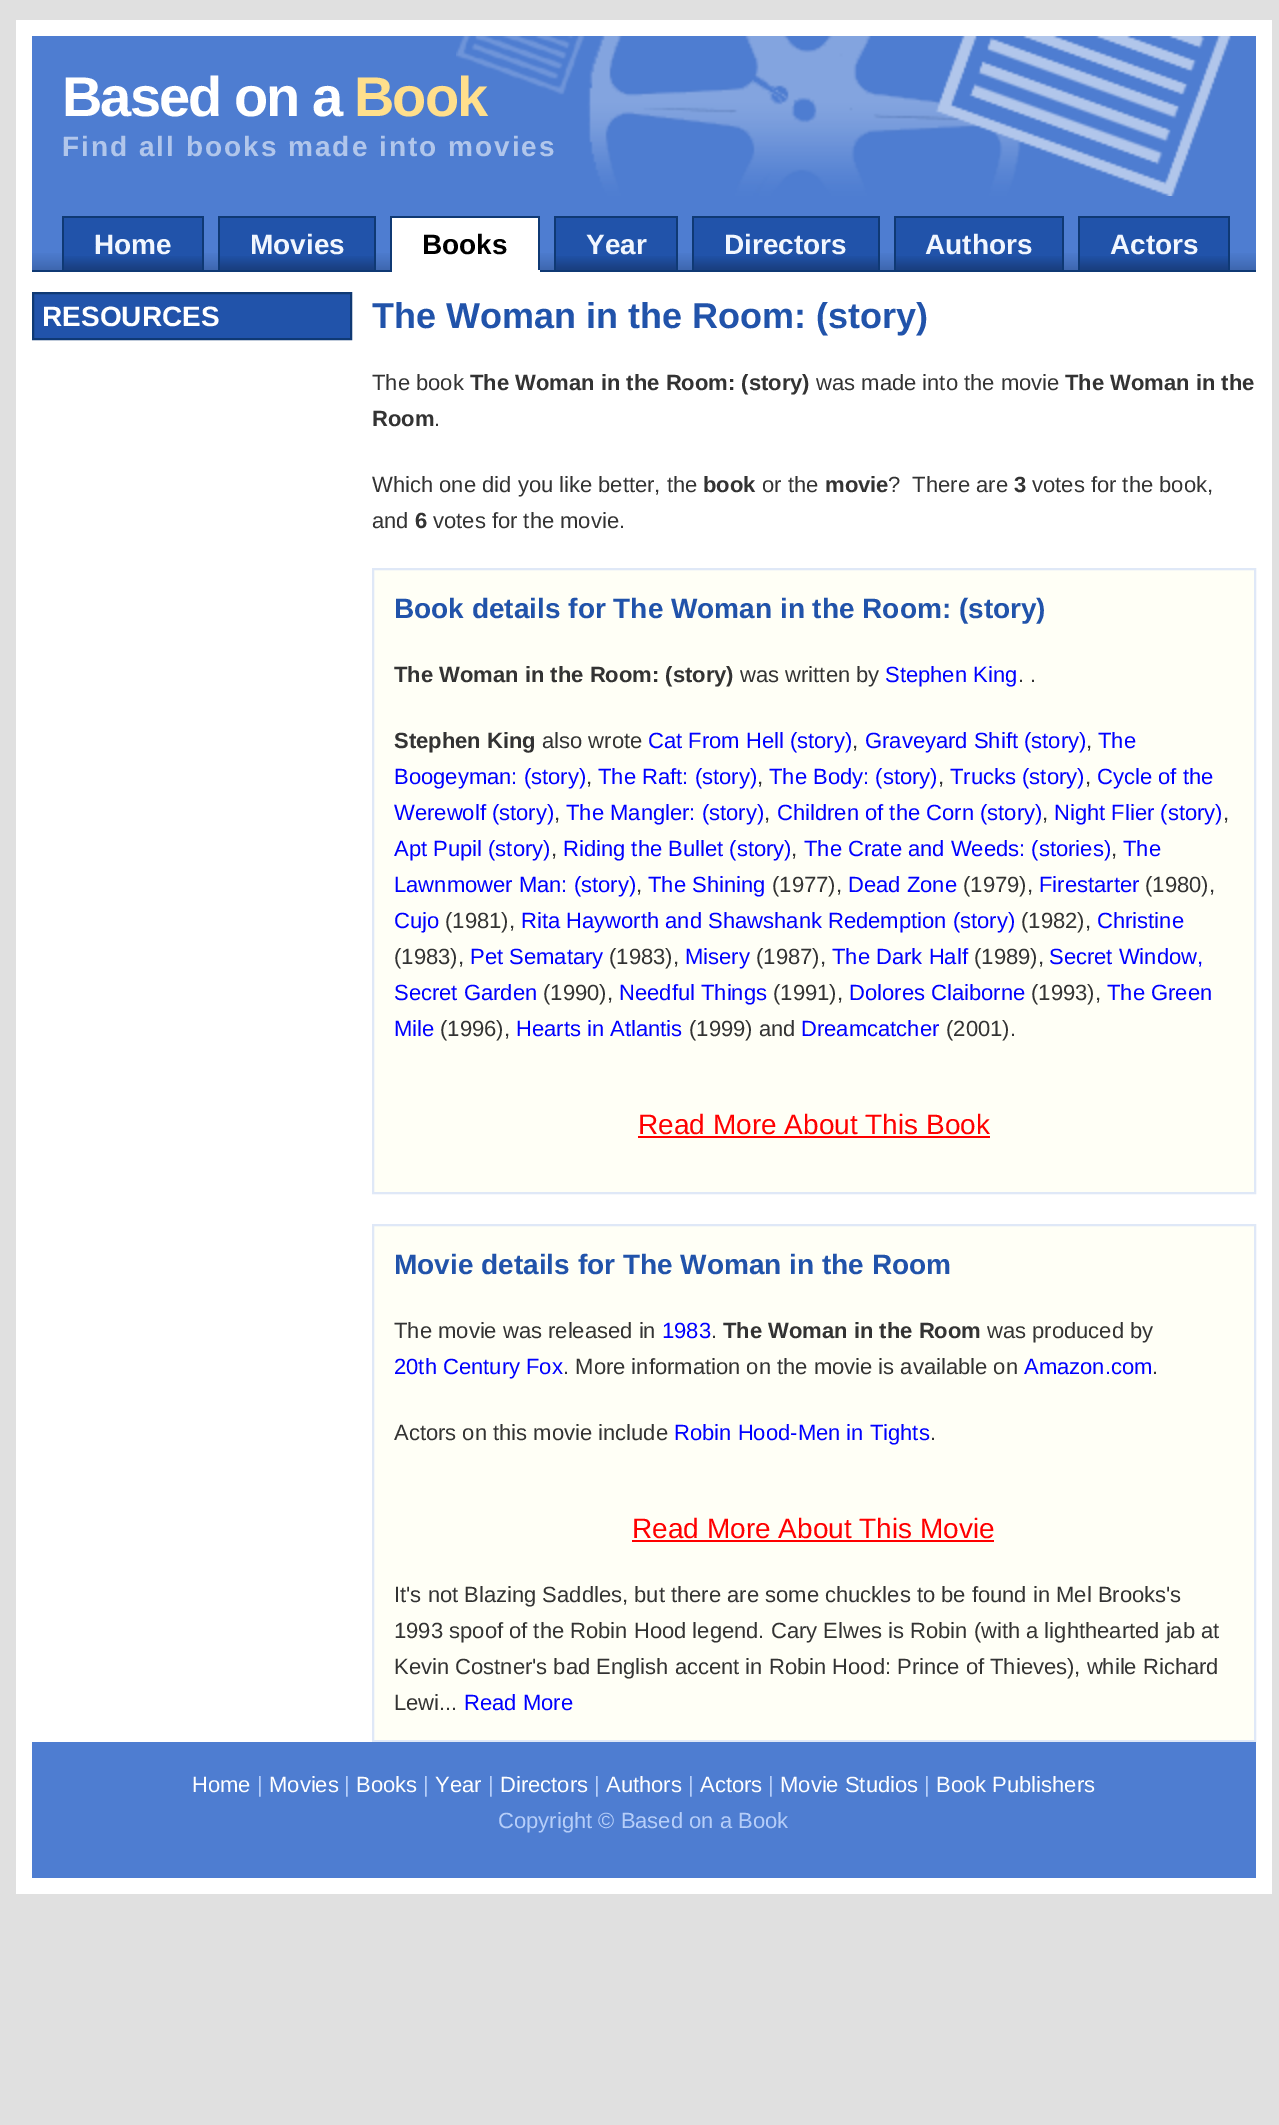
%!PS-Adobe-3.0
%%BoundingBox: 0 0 1279 2125
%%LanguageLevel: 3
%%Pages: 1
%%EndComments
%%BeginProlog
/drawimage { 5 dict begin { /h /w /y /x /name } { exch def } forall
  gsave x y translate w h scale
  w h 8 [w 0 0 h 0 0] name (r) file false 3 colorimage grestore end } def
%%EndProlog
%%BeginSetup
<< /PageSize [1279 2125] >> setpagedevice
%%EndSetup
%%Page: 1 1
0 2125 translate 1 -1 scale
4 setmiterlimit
0.878 setgray
0 0 1279 2125 rectfill
1 setgray
16 20 1256 1874 rectfill
0.306 0.49 0.82 setrgbcolor
32 36 1224 217 rectfill
(images/1.raw) 32 253 1224 17 drawimage
(images/2.raw) 456 36 775 160 drawimage
0.059 0.224 0.455 setrgbcolor
32 270 1224 2 rectfill
0.129 0.325 0.667 setrgbcolor
64 218 138 38 rectfill
0.059 0.224 0.455 setrgbcolor
62 216 142 2 rectfill
202 216 2 54 rectfill
62 216 2 54 rectfill
0.129 0.325 0.667 setrgbcolor
220 218 154 38 rectfill
0.059 0.224 0.455 setrgbcolor
218 216 158 2 rectfill
374 216 2 54 rectfill
218 216 2 54 rectfill
1 setgray
392 218 146 52 rectfill
0.059 0.224 0.455 setrgbcolor
390 216 150 2 rectfill
538 216 2 56 rectfill
1 setgray
390 270 150 2 rectfill
0.059 0.224 0.455 setrgbcolor
390 216 2 56 rectfill
0.129 0.325 0.667 setrgbcolor
556 218 120 38 rectfill
0.059 0.224 0.455 setrgbcolor
554 216 124 2 rectfill
676 216 2 54 rectfill
554 216 2 54 rectfill
0.129 0.325 0.667 setrgbcolor
694 218 184 38 rectfill
0.059 0.224 0.455 setrgbcolor
692 216 188 2 rectfill
878 216 2 54 rectfill
692 216 2 54 rectfill
0.129 0.325 0.667 setrgbcolor
896 218 166 38 rectfill
0.059 0.224 0.455 setrgbcolor
894 216 170 2 rectfill
1062 216 2 54 rectfill
894 216 2 54 rectfill
0.129 0.325 0.667 setrgbcolor
1080 218 148 38 rectfill
0.059 0.224 0.455 setrgbcolor
1078 216 152 2 rectfill
1228 216 2 54 rectfill
1078 216 2 54 rectfill
(images/3.raw) 64 256 138 14 drawimage
(images/4.raw) 220 256 154 14 drawimage
(images/5.raw) 556 256 120 14 drawimage
(images/6.raw) 694 256 184 14 drawimage
(images/7.raw) 896 256 166 14 drawimage
(images/8.raw) 1080 256 148 14 drawimage
0.129 0.325 0.667 setrgbcolor
newpath 33 293 moveto 351 293 lineto 351 339 lineto 33 339 lineto closepath gsave fill grestore
0.059 0.224 0.455 setrgbcolor
2 setlinewidth
stroke
1 1 0.965 setrgbcolor
newpath 373 569 moveto 1255 569 lineto 1255 1193 lineto 373 1193 lineto closepath gsave fill grestore
0.875 0.91 0.969 setrgbcolor
stroke
1 0 0 setrgbcolor
638 1136 352 2 rectfill
1 1 0.965 setrgbcolor
newpath 373 1225 moveto 1255 1225 lineto 1255 1741 lineto 373 1741 lineto closepath gsave fill grestore
0.875 0.91 0.969 setrgbcolor
stroke
1 0 0 setrgbcolor
632 1540 362 2 rectfill
0.306 0.49 0.82 setrgbcolor
32 1742 1224 136 rectfill
/LiberationSans-Bold [56 0 0 -56 0 0] selectfont
1 setgray
62 116 moveto -2 0 (Based on a) ashow
1 0.875 0.549 setrgbcolor
354 116 moveto -2 0 (Book) ashow
/LiberationSans-Bold [28 0 0 -28 0 0] selectfont
0.694 0.776 0.922 setrgbcolor
62 156 moveto 2 0 (Find all books made into movies) ashow
0.945 0.965 0.996 setrgbcolor
94 254 moveto (Home) show
250 254 moveto (Movies) show
0 setgray
422 254 moveto (Books) show
0.945 0.965 0.996 setrgbcolor
586 254 moveto (Year) show
724 254 moveto (Directors) show
925 254 moveto (Authors) show
1110 254 moveto (Actors) show
1 setgray
42 326 moveto (RESOURCES) show
/LiberationSans-Bold [36 0 0 -36 0 0] selectfont
0.129 0.325 0.667 setrgbcolor
372 328 moveto (The Woman in the Room: \(story\)) show
/LiberationSans-Regular [22 0 0 -22 0 0] selectfont
0.2 setgray
372 390 moveto (The book) show
/LiberationSans-Bold [22 0 0 -22 0 0] selectfont
470 390 moveto (The Woman in the Room: \(story\)) show
/LiberationSans-Regular [22 0 0 -22 0 0] selectfont
816 390 moveto (was made into the movie) show
/LiberationSans-Bold [22 0 0 -22 0 0] selectfont
1065 390 moveto (The Woman in the) show
372 426 moveto (Room) show
/LiberationSans-Regular [22 0 0 -22 0 0] selectfont
434 426 moveto (.) show
372 492 moveto (Which one did you like better, the) show
/LiberationSans-Bold [22 0 0 -22 0 0] selectfont
703 492 moveto (book) show
/LiberationSans-Regular [22 0 0 -22 0 0] selectfont
762 492 moveto (or the) show
/LiberationSans-Bold [22 0 0 -22 0 0] selectfont
825 492 moveto (movie) show
/LiberationSans-Regular [22 0 0 -22 0 0] selectfont
888 492 moveto (?  There are) show
/LiberationSans-Bold [22 0 0 -22 0 0] selectfont
1014 492 moveto (3) show
/LiberationSans-Regular [22 0 0 -22 0 0] selectfont
1032 492 moveto (votes for the book,) show
372 528 moveto (and) show
/LiberationSans-Bold [22 0 0 -22 0 0] selectfont
415 528 moveto (6) show
/LiberationSans-Regular [22 0 0 -22 0 0] selectfont
433 528 moveto (votes for the movie.) show
/LiberationSans-Bold [28 0 0 -28 0 0] selectfont
0.129 0.325 0.667 setrgbcolor
394 618 moveto (Book details for The Woman in the Room: \(story\)) show
/LiberationSans-Bold [22 0 0 -22 0 0] selectfont
0.2 setgray
394 682 moveto (The Woman in the Room: \(story\)) show
/LiberationSans-Regular [22 0 0 -22 0 0] selectfont
740 682 moveto (was written by) show
0 0 1 setrgbcolor
885 682 moveto (Stephen King) show
0.2 setgray
1018 682 moveto (. .) show
/LiberationSans-Bold [22 0 0 -22 0 0] selectfont
394 748 moveto (Stephen King) show
/LiberationSans-Regular [22 0 0 -22 0 0] selectfont
542 748 moveto (also wrote) show
0 0 1 setrgbcolor
648 748 moveto (Cat From Hell \(story\)) show
0.2 setgray
852 748 moveto (,) show
0 0 1 setrgbcolor
865 748 moveto (Graveyard Shift \(story\)) show
0.2 setgray
1086 748 moveto (,) show
0 0 1 setrgbcolor
1098 748 moveto (The) show
394 784 moveto (Boogeyman: \(story\)) show
0.2 setgray
586 784 moveto (,) show
0 0 1 setrgbcolor
598 784 moveto (The Raft: \(story\)) show
0.2 setgray
757 784 moveto (,) show
0 0 1 setrgbcolor
769 784 moveto (The Body: \(story\)) show
0.2 setgray
938 784 moveto (,) show
0 0 1 setrgbcolor
950 784 moveto (Trucks \(story\)) show
0.2 setgray
1085 784 moveto (,) show
0 0 1 setrgbcolor
1097 784 moveto (Cycle of the) show
394 820 moveto (Werewolf \(story\)) show
0.2 setgray
554 820 moveto (,) show
0 0 1 setrgbcolor
566 820 moveto (The Mangler: \(story\)) show
0.2 setgray
764 820 moveto (,) show
0 0 1 setrgbcolor
777 820 moveto (Children of the Corn \(story\)) show
0.2 setgray
1042 820 moveto (,) show
0 0 1 setrgbcolor
1054 820 moveto (Night Flier \(story\)) show
0.2 setgray
1223 820 moveto (,) show
0 0 1 setrgbcolor
394 856 moveto (Apt Pupil \(story\)) show
0.2 setgray
551 856 moveto (,) show
0 0 1 setrgbcolor
563 856 moveto (Riding the Bullet \(story\)) show
0.2 setgray
791 856 moveto (,) show
0 0 1 setrgbcolor
804 856 moveto (The Crate and Weeds: \(stories\)) show
0.2 setgray
1111 856 moveto (,) show
0 0 1 setrgbcolor
1123 856 moveto (The) show
394 892 moveto (Lawnmower Man: \(story\)) show
0.2 setgray
636 892 moveto (,) show
0 0 1 setrgbcolor
648 892 moveto (The Shining) show
0.2 setgray
772 892 moveto (\(1977\),) show
0 0 1 setrgbcolor
848 892 moveto (Dead Zone) show
0.2 setgray
963 892 moveto (\(1979\),) show
0 0 1 setrgbcolor
1039 892 moveto (Firestarter) show
0.2 setgray
1145 892 moveto (\(1980\),) show
0 0 1 setrgbcolor
394 928 moveto (Cujo) show
0.2 setgray
445 928 moveto (\(1981\),) show
0 0 1 setrgbcolor
521 928 moveto (Rita Hayworth and Shawshank Redemption \(story\)) show
0.2 setgray
1021 928 moveto (\(1982\),) show
0 0 1 setrgbcolor
1097 928 moveto (Christine) show
0.2 setgray
394 964 moveto (\(1983\),) show
0 0 1 setrgbcolor
470 964 moveto (Pet Sematary) show
0.2 setgray
609 964 moveto (\(1983\),) show
0 0 1 setrgbcolor
685 964 moveto (Misery) show
0.2 setgray
756 964 moveto (\(1987\),) show
0 0 1 setrgbcolor
832 964 moveto (The Dark Half) show
0.2 setgray
974 964 moveto (\(1989\),) show
0 0 1 setrgbcolor
1049 964 moveto (Secret Window,) show
394 1000 moveto (Secret Garden) show
0.2 setgray
543 1000 moveto (\(1990\),) show
0 0 1 setrgbcolor
619 1000 moveto (Needful Things) show
0.2 setgray
773 1000 moveto (\(1991\),) show
0 0 1 setrgbcolor
849 1000 moveto (Dolores Claiborne) show
0.2 setgray
1031 1000 moveto (\(1993\),) show
0 0 1 setrgbcolor
1107 1000 moveto (The Green) show
394 1036 moveto (Mile) show
0.2 setgray
440 1036 moveto (\(1996\),) show
0 0 1 setrgbcolor
516 1036 moveto (Hearts in Atlantis) show
0.2 setgray
689 1036 moveto (\(1999\) and) show
0 0 1 setrgbcolor
801 1036 moveto (Dreamcatcher) show
0.2 setgray
946 1036 moveto (\(2001\).) show
/LiberationSans-Regular [28 0 0 -28 0 0] selectfont
1 0 0 setrgbcolor
638 1134 moveto (Read More About This Book) show
/LiberationSans-Bold [28 0 0 -28 0 0] selectfont
0.129 0.325 0.667 setrgbcolor
394 1274 moveto (Movie details for The Woman in the Room) show
/LiberationSans-Regular [22 0 0 -22 0 0] selectfont
0.2 setgray
394 1338 moveto (The movie was released in) show
0 0 1 setrgbcolor
662 1338 moveto (1983) show
0.2 setgray
711 1338 moveto (.) show
/LiberationSans-Bold [22 0 0 -22 0 0] selectfont
723 1338 moveto (The Woman in the Room) show
/LiberationSans-Regular [22 0 0 -22 0 0] selectfont
987 1338 moveto (was produced by) show
0 0 1 setrgbcolor
394 1374 moveto (20th Century Fox) show
0.2 setgray
563 1374 moveto (. More information on the movie is available on) show
0 0 1 setrgbcolor
1024 1374 moveto (Amazon.com) show
0.2 setgray
1152 1374 moveto (.) show
394 1440 moveto (Actors on this movie include) show
0 0 1 setrgbcolor
674 1440 moveto (Robin Hood-Men in Tights) show
0.2 setgray
930 1440 moveto (.) show
/LiberationSans-Regular [28 0 0 -28 0 0] selectfont
1 0 0 setrgbcolor
632 1538 moveto (Read More About This Movie) show
/LiberationSans-Regular [22 0 0 -22 0 0] selectfont
0.2 setgray
394 1602 moveto (It's not Blazing Saddles, but there are some chuckles to be found in Mel Brooks's) show
394 1638 moveto (1993 spoof of the Robin Hood legend. Cary Elwes is Robin \(with a lighthearted jab at) show
394 1674 moveto (Kevin Costner's bad English accent in Robin Hood: Prince of Thieves\), while Richard) show
394 1710 moveto (Lewi...) show
0 0 1 setrgbcolor
464 1710 moveto (Read More) show
1 setgray
192 1792 moveto (Home) show
0.714 0.808 0.976 setrgbcolor
257 1792 moveto (|) show
1 setgray
269 1792 moveto (Movies) show
0.714 0.808 0.976 setrgbcolor
344 1792 moveto (|) show
1 setgray
356 1792 moveto (Books) show
0.714 0.808 0.976 setrgbcolor
423 1792 moveto (|) show
1 setgray
435 1792 moveto (Year) show
0.714 0.808 0.976 setrgbcolor
488 1792 moveto (|) show
1 setgray
500 1792 moveto (Directors) show
0.714 0.808 0.976 setrgbcolor
594 1792 moveto (|) show
1 setgray
606 1792 moveto (Authors) show
0.714 0.808 0.976 setrgbcolor
688 1792 moveto (|) show
1 setgray
700 1792 moveto (Actors) show
0.714 0.808 0.976 setrgbcolor
768 1792 moveto (|) show
1 setgray
780 1792 moveto (Movie Studios) show
0.714 0.808 0.976 setrgbcolor
924 1792 moveto (|) show
1 setgray
936 1792 moveto (Book Publishers) show
0.714 0.808 0.976 setrgbcolor
498 1828 moveto (Copyright © Based on a Book) show
showpage
%%EOF
